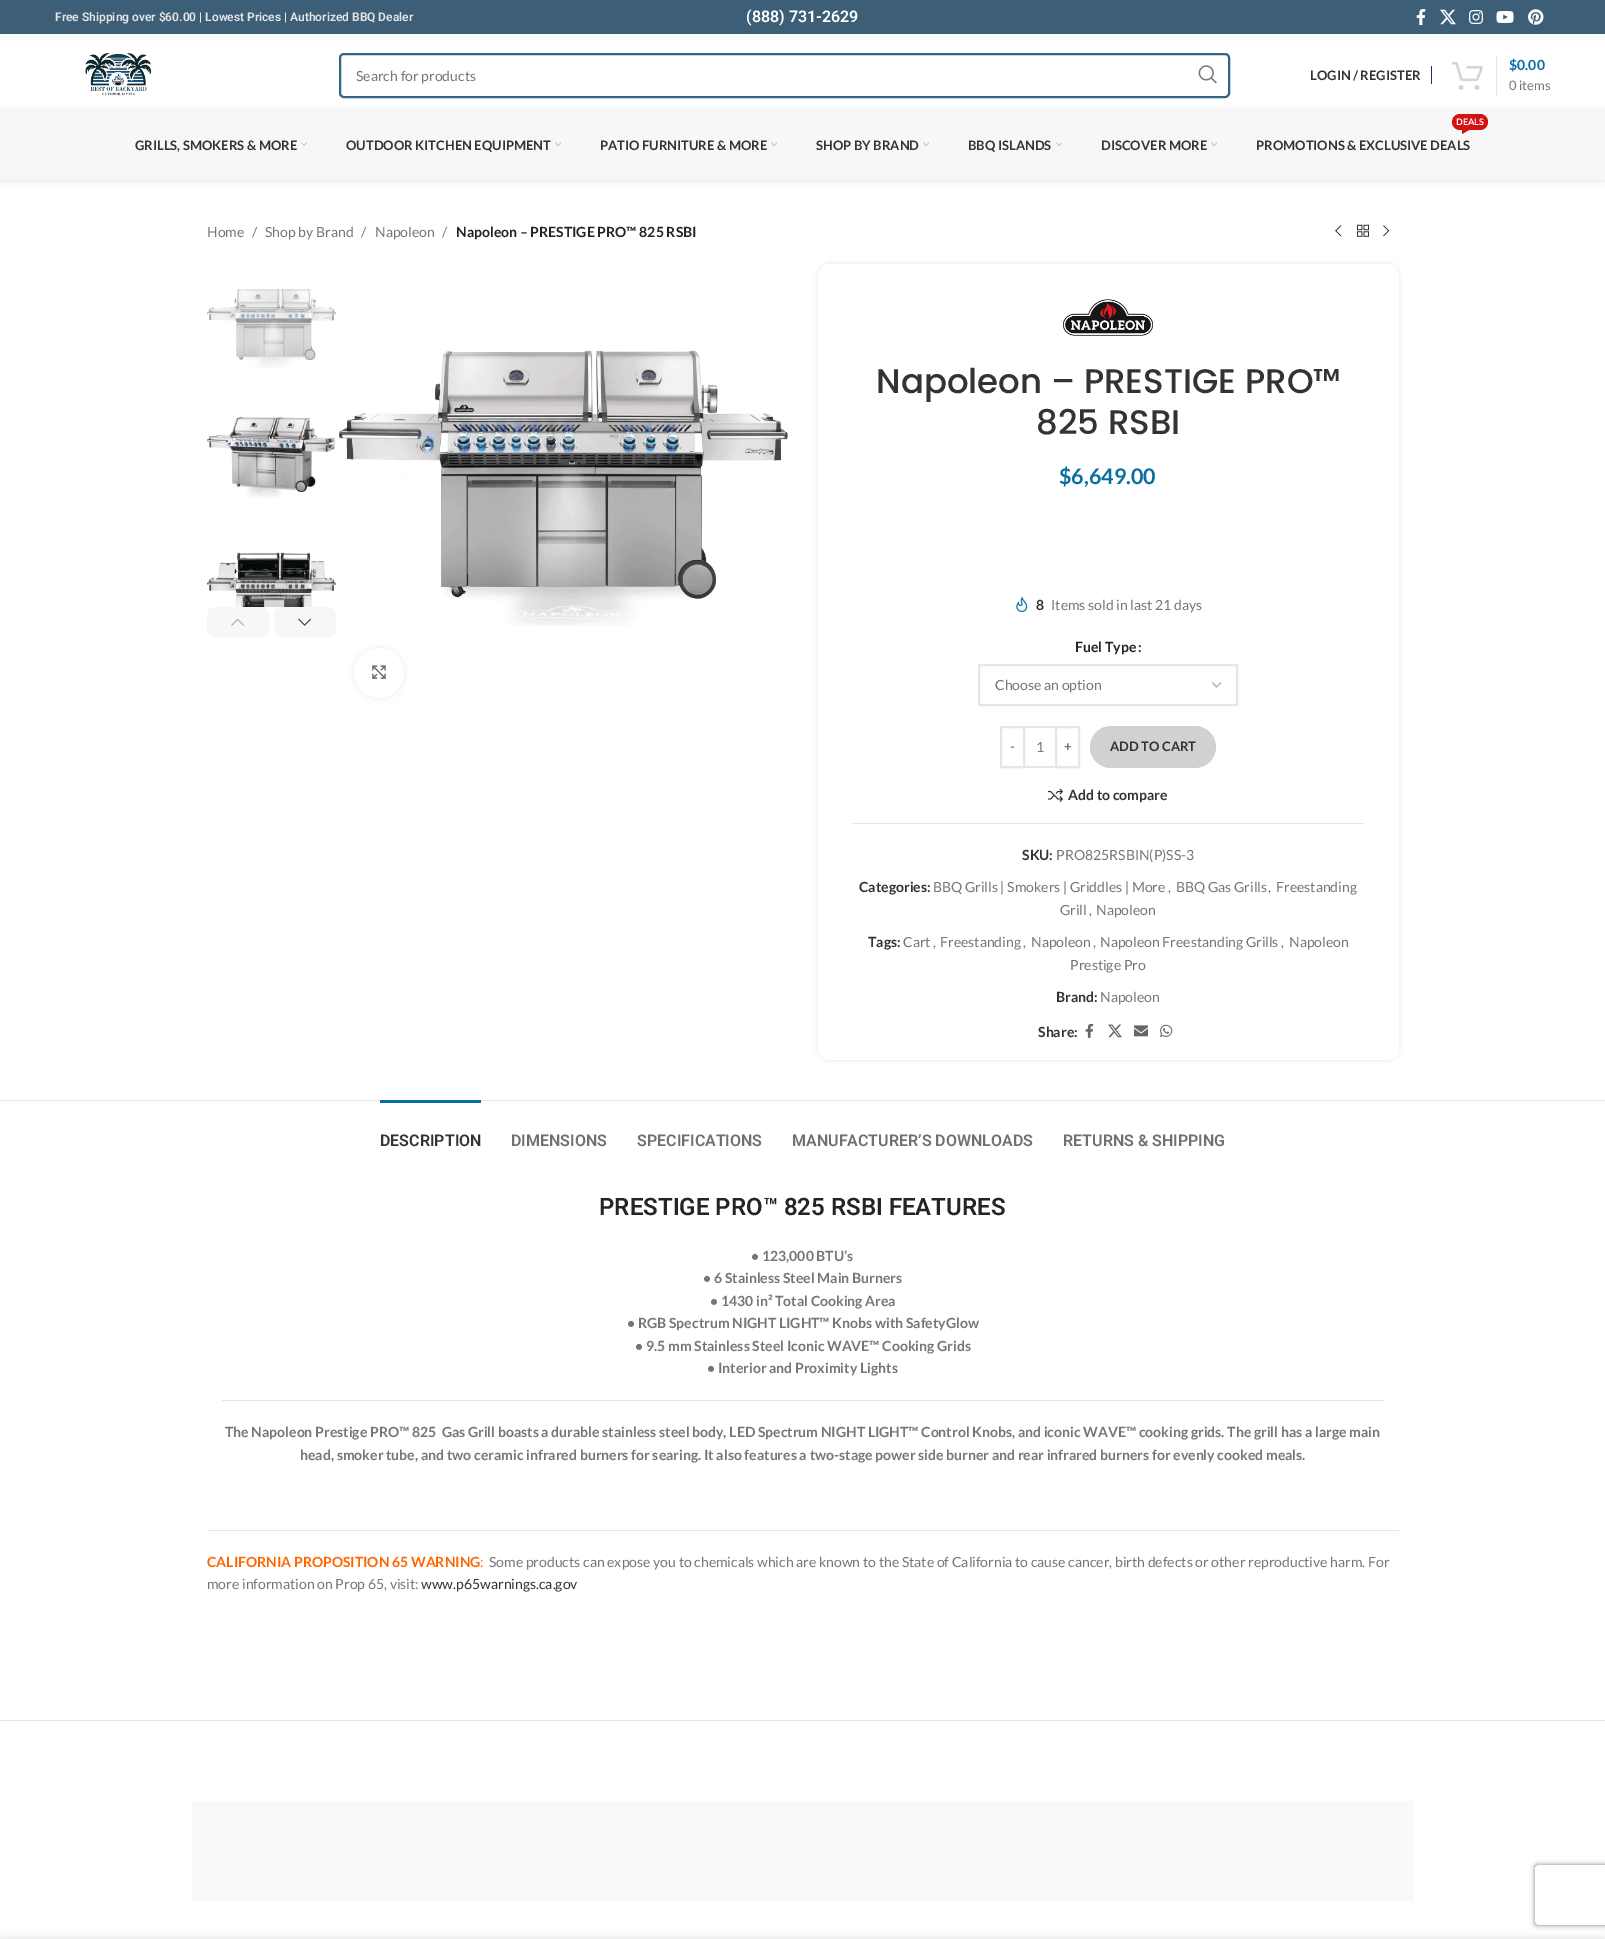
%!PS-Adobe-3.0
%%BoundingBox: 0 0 1605 1939
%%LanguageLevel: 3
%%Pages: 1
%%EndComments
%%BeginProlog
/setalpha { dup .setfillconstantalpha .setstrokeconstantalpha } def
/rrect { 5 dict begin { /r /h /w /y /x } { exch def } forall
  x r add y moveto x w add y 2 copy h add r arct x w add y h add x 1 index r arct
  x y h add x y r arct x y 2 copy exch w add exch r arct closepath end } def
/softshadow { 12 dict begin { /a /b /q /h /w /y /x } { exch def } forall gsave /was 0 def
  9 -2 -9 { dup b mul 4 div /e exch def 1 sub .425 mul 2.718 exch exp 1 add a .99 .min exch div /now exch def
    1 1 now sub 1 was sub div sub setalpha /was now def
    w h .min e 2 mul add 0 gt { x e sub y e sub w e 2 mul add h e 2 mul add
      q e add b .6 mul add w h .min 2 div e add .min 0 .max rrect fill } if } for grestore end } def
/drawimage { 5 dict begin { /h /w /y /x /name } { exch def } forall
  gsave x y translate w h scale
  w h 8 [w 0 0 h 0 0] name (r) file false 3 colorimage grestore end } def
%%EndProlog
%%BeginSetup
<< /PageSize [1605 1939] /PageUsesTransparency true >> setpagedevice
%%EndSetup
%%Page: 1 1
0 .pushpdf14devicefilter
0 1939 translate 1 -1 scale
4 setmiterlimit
1 setgray
0 0 1605 1939 rectfill
0.235 0.369 0.467 setrgbcolor
0 0 1605 34 rectfill
0.969 0.976 0.98 setrgbcolor
0 34 1605 6 rectfill
(images/1.raw) 1416 9 10 16 drawimage
(images/2.raw) 1440 9 16 16 drawimage
(images/3.raw) 1469 10 14 14 drawimage
(images/4.raw) 1496 11 18 12 drawimage
(images/5.raw) 1528 9 16 16 drawimage
(images/6.raw) 85 53 67 43 drawimage
0.204 0.396 0.518 setrgbcolor
2 setlinewidth
340 54 889 43 4 rrect stroke
(images/7.raw) 1198 65 19 19 drawimage
0.098 0.208 0.404 setrgbcolor
1431 66 1 18 rectfill
(images/8.raw) 1452 62 31 28 drawimage
0.902 setgray
1496 55 1 40 rectfill
0 setgray
0 111 1605 70 0 4 0.1 softshadow
0.969 setgray
0 110 1605 70 rectfill
(images/9.raw) 301 142 6 4 drawimage
(images/9.raw) 555 142 6 4 drawimage
(images/9.raw) 771 142 6 4 drawimage
(images/9.raw) 923 142 6 4 drawimage
(images/9.raw) 1056 142 6 4 drawimage
(images/9.raw) 1211 142 6 4 drawimage
0.831 0.071 0.071 setrgbcolor
1452 114 36 16 8 rrect fill
newpath 1462 130 moveto 1469 130 lineto 1462 134 lineto closepath fill
(images/10.raw) 1335 225 7 12 drawimage
(images/11.raw) 1357 224 12 13 drawimage
(images/12.raw) 1383 225 7 12 drawimage
(images/13.raw) 207 288 129 80 drawimage
(images/14.raw) 207 417 129 82 drawimage
(images/15.raw) 207 552 129 55 drawimage
0.969 setgray
207 607 62 30 8 rrect fill
(images/16.raw) 231 618 13 8 drawimage
274 607 62 30 8 rrect fill
(images/17.raw) 298 618 13 8 drawimage
(images/18.raw) 339 350 449 276 drawimage
0 setgray
354 648 50 50 25 2.5 0.08 softshadow
1 setgray
newpath 379 673 25 0 360 arc closepath fill
(images/19.raw) 372 665 14 14 drawimage
0 setgray
818 264 581 796 12 2.5 0.1 softshadow
1 setgray
818 264 581 796 12 rrect fill
(images/20.raw) 1063 299 90 37 drawimage
(images/21.raw) 1016 596 12 16 drawimage
0.733 setgray
1.4 setlinewidth
newpath 1212.5 682.5 moveto 1216.5 687 lineto 1221 682.5 lineto stroke
0.902 setgray
2 setlinewidth
979 665 258 40 rectstroke
1001 727 23 40 rectstroke
1025 726 30 2 rectfill
1025 766 30 2 rectfill
1056 727 23 40 rectstroke
0.82 setgray
1090 726 126 42 21 rrect fill
(images/22.raw) 1048 788 15 14 drawimage
0.894 setgray
853 823 511 1 rectfill
(images/23.raw) 1085 1023 9 15 drawimage
(images/24.raw) 1108 1024 14 14 drawimage
(images/25.raw) 1134 1025 14 12 drawimage
(images/26.raw) 1160 1024 13 13 drawimage
0 1100 1605 1 rectfill
0 1720 1605 1 rectfill
0.035 0.431 0.627 setrgbcolor
380 1100 101 3 rectfill
0.902 setgray
222 1400 1162 1 rectfill
207 1530 1192 1 rectfill
0.976 setgray
192 1801 1222 100 rectfill
gsave
newpath 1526 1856 moveto 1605 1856 lineto 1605 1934 lineto 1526 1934 lineto closepath 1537 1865 moveto 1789 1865 lineto 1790 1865 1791 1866 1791 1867 curveto 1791 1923 lineto 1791 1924 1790 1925 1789 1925 curveto 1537 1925 lineto 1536 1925 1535 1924 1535 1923 curveto 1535 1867 lineto 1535 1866 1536 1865 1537 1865 curveto closepath eoclip newpath
0.502 setgray
1535 1865 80 60 2 2.5 1 softshadow
grestore
0 setgray
0 1939 1605 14 0 4.5 0.14 softshadow
/Roboto-SemiBold [12 0 0 -12 0 0] selectfont
0.902 setgray
55 21 moveto (Free Shipping over $60.00 | Lowest Prices | Authorized BBQ Dealer) show
/Roboto-SemiBold [16 0 0 -16 0 0] selectfont
1 setgray
746 22 moveto (\(888\) 731-2629) show
/Lato-Regular [14 0 0 -14 0 0] selectfont
0.463 setgray
356 81 moveto (Search for products) show
/Lato-Bold [13 0 0 -13 0 0] selectfont
0.2 setgray
1310 80 moveto (LOGIN / REGISTER) show
/Lato-Bold [14 0 0 -14 0 0] selectfont
0.035 0.431 0.627 setrgbcolor
1509 70 moveto ($0.00) show
/Lato-Regular [13 0 0 -13 0 0] selectfont
0.463 setgray
1509 90 moveto (0 items) show
/Lato-Bold [13 0 0 -13 0 0] selectfont
0.2 setgray
135 150 moveto (GRILLS, SMOKERS & MORE) show
346 150 moveto (OUTDOOR KITCHEN EQUIPMENT) show
600 150 moveto (PATIO FURNITURE & MORE) show
816 150 moveto (SHOP BY BRAND) show
968 150 moveto (BBQ ISLANDS) show
1101 150 moveto (DISCOVER MORE) show
/Lato-Bold [9 0 0 -9 0 0] selectfont
1 setgray
1456 125 moveto (DEALS) show
/Lato-Bold [13 0 0 -13 0 0] selectfont
0.2 setgray
1256 150 moveto (PROMOTIONS & EXCLUSIVE DEALS) show
/Lato-Regular [14 0 0 -14 0 0] selectfont
0.463 setgray
207 237 moveto (Home) show
252 237 moveto (/) show
265 237 moveto (Shop by Brand) show
361 237 moveto (/) show
375 237 moveto (Napoleon) show
442 237 moveto (/) show
/Lato-Bold [14 0 0 -14 0 0] selectfont
0.141 setgray
456 237 moveto (Napoleon – PRESTIGE PRO™ 825 RSBI) show
/Poppins-Medium [34 0 0 -34 0 0] selectfont
0.2 setgray
876 393 moveto (Napoleon – PRESTIGE PRO™) show
1036 434 moveto (825 RSBI) show
/Lato-Bold [21.5 0 0 -21.5 0 0] selectfont
0.035 0.431 0.627 setrgbcolor
1059 484 moveto ($6,649.00) show
/Lato-Bold [14 0 0 -14 0 0] selectfont
0.2 setgray
1036 610 moveto (8) show
/Lato-Regular [14 0 0 -14 0 0] selectfont
0.463 setgray
1051 610 moveto (Items sold in last 21 days) show
/Lato-Bold [14 0 0 -14 0 0] selectfont
0.141 setgray
1075 652 moveto (Fuel Type) show
1138 652 moveto (:) show
/Lato-Regular [14 0 0 -14 0 0] selectfont
0.463 setgray
995 690 moveto (Choose an option) show
/Lato-Bold [13 0 0 -13 0 0] selectfont
1010 751 moveto (-) show
/Lato-Regular [14 0 0 -14 0 0] selectfont
1036 752 moveto (1) show
/Lato-Bold [13 0 0 -13 0 0] selectfont
1064 751 moveto (+) show
0.2 setgray
1110 751 moveto (ADD TO CART) show
/Lato-Bold [14 0 0 -14 0 0] selectfont
1068 800 moveto (Add to compare) show
1022 860 moveto (SKU:) show
/Lato-Regular [14 0 0 -14 0 0] selectfont
0.463 setgray
1056 860 moveto (PRO825RSBIN\(P\)SS-3) show
/Lato-Bold [14 0 0 -14 0 0] selectfont
0.2 setgray
859 892 moveto (Categories:) show
/Lato-Regular [14 0 0 -14 0 0] selectfont
0.463 setgray
933 892 moveto (BBQ Grills | Smokers | Griddles | More) show
1168 892 moveto (,) show
1176 892 moveto (BBQ Gas Grills) show
1268 892 moveto (,) show
1276 892 moveto (Freestanding) show
1060 915 moveto (Grill) show
1089 915 moveto (,) show
1096 915 moveto (Napoleon) show
/Lato-Bold [14 0 0 -14 0 0] selectfont
0.2 setgray
868 947 moveto (Tags:) show
/Lato-Regular [14 0 0 -14 0 0] selectfont
0.463 setgray
903 947 moveto (Cart) show
933 947 moveto (,) show
940 947 moveto (Freestanding) show
1023 947 moveto (,) show
1031 947 moveto (Napoleon) show
1093 947 moveto (,) show
1100 947 moveto (Napoleon Freestanding Grills) show
1281 947 moveto (,) show
1289 947 moveto (Napoleon) show
1070 970 moveto (Prestige Pro) show
/Lato-Bold [14 0 0 -14 0 0] selectfont
0.2 setgray
1056 1002 moveto (Brand:) show
/Lato-Regular [14 0 0 -14 0 0] selectfont
0.463 setgray
1100 1002 moveto (Napoleon) show
/Lato-Bold [14 0 0 -14 0 0] selectfont
0.2 setgray
1038 1037 moveto (Share:) show
/Roboto-SemiBold [16 0 0 -16 0 0] selectfont
380 1146 moveto (DESCRIPTION) show
0.439 setgray
511 1146 moveto (DIMENSIONS) show
637 1146 moveto (SPECIFICATIONS) show
792 1146 moveto (MANUFACTURER’S DOWNLOADS) show
1063 1146 moveto (RETURNS & SHIPPING) show
/Roboto-SemiBold [24 0 0 -24 0 0] selectfont
0.141 setgray
599 1215 moveto (PRESTIGE PRO™ 825 RSBI FEATURES) show
/Lato-Bold [14 0 0 -14 0 0] selectfont
0.463 setgray
751 1261 moveto (• 123,000 BTU’s) show
703 1283 moveto (• 6 Stainless Steel Main Burners) show
710 1306 moveto (• 1430 in² Total Cooking Area) show
627 1328 moveto (• RGB Spectrum NIGHT LIGHT™ Knobs with SafetyGlow) show
635 1351 moveto (• 9.5 mm Stainless Steel Iconic WAVE™ Cooking Grids) show
707 1373 moveto (• Interior and Proximity Lights) show
225 1437 moveto (The Napoleon Prestige PRO™ 825  Gas Grill boasts a durable stainless steel body, LED Spectrum NIGHT LIGHT™ Control Knobs, and iconic WAVE™ cooking grids. The grill has a large main) show
300 1460 moveto (head, smoker tube, and two ceramic infrared burners for searing. It also features a two-stage power side burner and rear infrared burners for evenly cooked meals.) show
1 0.4 0 setrgbcolor
207 1567 moveto (CALIFORNIA PROPOSITION 65 WARNING) show
/Lato-Regular [14 0 0 -14 0 0] selectfont
480 1567 moveto (:) show
0.463 setgray
489 1567 moveto (Some products can expose you to chemicals which are known to the State of California to cause cancer, birth defects or other reproductive harm. For) show
207 1589 moveto (more information on Prop 65, visit:) show
0.2 setgray
421 1589 moveto (www.p65warnings.ca.gov) show
.poppdf14devicefilter showpage
%%EOF
